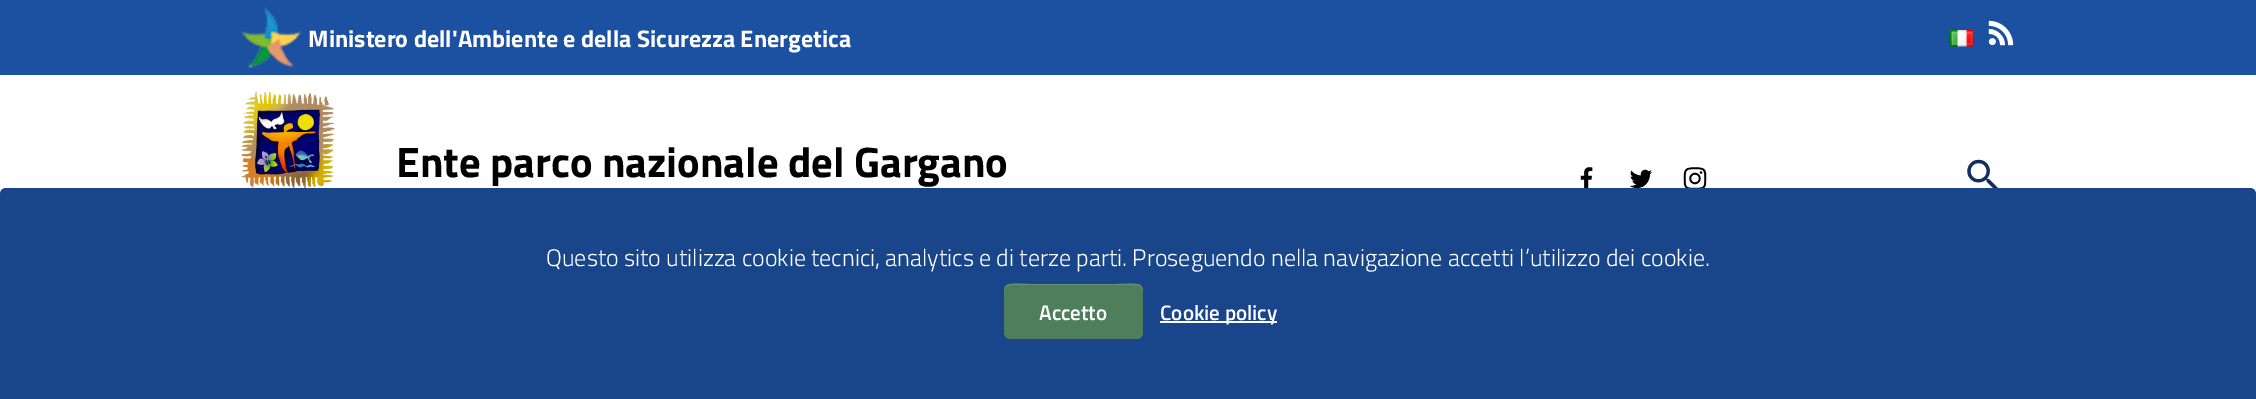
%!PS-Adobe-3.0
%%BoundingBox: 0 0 2256 399
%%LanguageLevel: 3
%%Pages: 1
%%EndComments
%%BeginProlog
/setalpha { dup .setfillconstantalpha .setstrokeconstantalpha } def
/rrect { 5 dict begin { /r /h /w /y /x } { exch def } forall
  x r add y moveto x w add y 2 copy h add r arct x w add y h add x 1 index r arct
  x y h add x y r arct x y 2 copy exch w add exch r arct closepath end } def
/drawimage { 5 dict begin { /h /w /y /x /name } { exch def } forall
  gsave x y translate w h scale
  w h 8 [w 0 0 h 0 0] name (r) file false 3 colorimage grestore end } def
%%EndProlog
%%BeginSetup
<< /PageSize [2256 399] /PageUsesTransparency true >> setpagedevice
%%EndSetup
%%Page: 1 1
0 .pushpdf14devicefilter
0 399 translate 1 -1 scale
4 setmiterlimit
1 setgray
0 0 2256 399 rectfill
0.11 0.314 0.631 setrgbcolor
0 0 2256 75 rectfill
(images/1.raw) 241 7 61 61 drawimage
(images/2.raw) 1950 30 24 17 drawimage
(images/3.raw) 1988 20 26 26 drawimage
(images/4.raw) 240 91 95 97 drawimage
(images/5.raw) 1580 167 13 21 drawimage
(images/6.raw) 1630 169 22 19 drawimage
(images/7.raw) 1683 167 24 21 drawimage
(images/8.raw) 1967 159 31 29 drawimage
0.098 0.271 0.545 setrgbcolor
newpath 6 188 moveto 2250 188 lineto 2253.5 188 2256 190.5 2256 194 curveto 2256 399 lineto 0 399 lineto 0 194 lineto 0 190.5 2.5 188 6 188 curveto closepath fill
0.306 0.494 0.357 setrgbcolor
1004 284 139 55 6 rrect fill
0.15 setalpha
1 setgray
newpath 1010 285 moveto 1137 285 lineto 1140 285 1143 288 1143 291 curveto 1143 279 1121 284 1116 284 curveto 1031 284 lineto 1026 284 1004 279 1004 291 curveto 1004 288 1006 285 1010 285 curveto closepath fill
1 setalpha
1160 321 117 2 rectfill
/TitilliumWeb-Bold [24 0 0 -24 0 0] selectfont
308 47 moveto (Ministero dell'Ambiente e della Sicurezza Energetica) show
/TitilliumWeb-Bold [42.6 0 0 -42.6 0 0] selectfont
0 setgray
396 177 moveto (Ente parco nazionale del Gargano) show
/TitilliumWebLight-Light [24 0 0 -24 0 0] selectfont
1 setgray
546 266 moveto (Questo sito utilizza cookie tecnici, analytics e di terze parti. Proseguendo nella navigazione accetti l’utilizzo dei cookie.) show
/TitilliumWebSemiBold-SemiBold [21 0 0 -21 0 0] selectfont
1039 320 moveto (Accetto) show
1160 320 moveto (Cookie policy) show
.poppdf14devicefilter showpage
%%EOF
